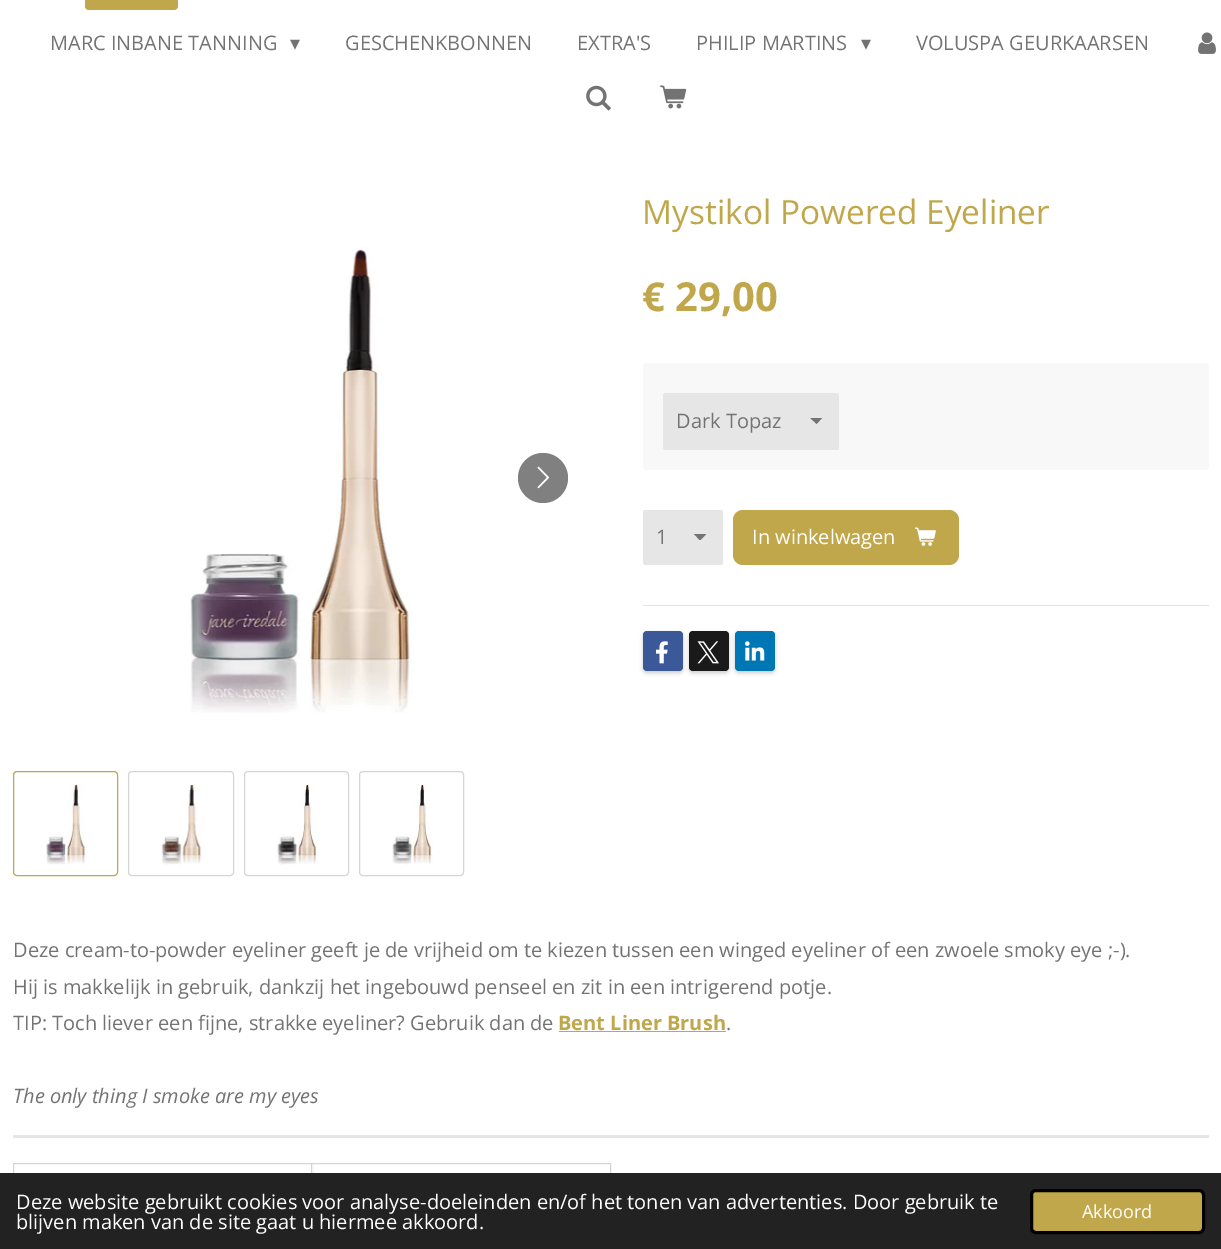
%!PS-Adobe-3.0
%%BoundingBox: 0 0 1221 1249
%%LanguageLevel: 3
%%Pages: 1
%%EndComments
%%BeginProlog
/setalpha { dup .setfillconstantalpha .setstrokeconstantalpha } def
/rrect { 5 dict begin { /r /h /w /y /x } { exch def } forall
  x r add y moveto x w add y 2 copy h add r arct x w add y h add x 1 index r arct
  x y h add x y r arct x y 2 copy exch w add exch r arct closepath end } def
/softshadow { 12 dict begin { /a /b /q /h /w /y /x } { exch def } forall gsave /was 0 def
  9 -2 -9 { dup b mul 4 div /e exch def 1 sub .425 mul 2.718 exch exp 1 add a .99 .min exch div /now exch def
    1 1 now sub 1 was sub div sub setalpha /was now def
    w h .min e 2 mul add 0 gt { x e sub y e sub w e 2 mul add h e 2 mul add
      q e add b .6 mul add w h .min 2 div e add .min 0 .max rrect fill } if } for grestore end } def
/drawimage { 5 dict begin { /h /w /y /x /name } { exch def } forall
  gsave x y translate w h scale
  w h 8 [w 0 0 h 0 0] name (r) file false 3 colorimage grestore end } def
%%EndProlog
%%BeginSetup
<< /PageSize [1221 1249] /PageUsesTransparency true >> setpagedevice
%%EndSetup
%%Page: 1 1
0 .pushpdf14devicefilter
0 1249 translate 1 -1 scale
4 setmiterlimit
1 setgray
0 0 1221 1249 rectfill
0.757 0.655 0.294 setrgbcolor
85 -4 93 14 4 rrect fill
(images/1.raw) 1198 32 18 22 drawimage
(images/2.raw) 586 85 25 26 drawimage
(images/3.raw) 660 85 27 24 drawimage
(images/4.raw) 190 247 223 466 drawimage
0.502 setgray
newpath 543 478 25 0 360 arc closepath fill
(images/5.raw) 537 466 12 23 drawimage
0.757 0.655 0.294 setrgbcolor
13.5 771.5 104 104 3.5 rrect stroke
(images/6.raw) 46 783 40 82 drawimage
0.835 setgray
128.5 771.5 105 104 3.5 rrect stroke
(images/7.raw) 159 784 43 81 drawimage
244.5 771.5 104 104 3.5 rrect stroke
(images/8.raw) 275 783 42 82 drawimage
359.5 771.5 104 104 3.5 rrect stroke
(images/9.raw) 392 784 41 81 drawimage
0.973 setgray
643 363 566 107 4 rrect fill
0.902 setgray
663 393 176 57 2.5 rrect fill
gsave
810 418 13 6 rectclip
0.451 setgray
newpath 816.5 424 moveto 810 417.5 lineto 822.5 417.5 lineto closepath fill
grestore
643 510 80 55 2.5 rrect fill
gsave
694 534 12 6 rectclip
0.451 setgray
newpath 700 540.5 moveto 694 534 lineto 706.5 534 lineto closepath fill
grestore
0.757 0.655 0.294 setrgbcolor
733 510 226 55 10 rrect fill
(images/10.raw) 915 527 21 19 drawimage
0.89 setgray
643 605 566 1 rectfill
0 setgray
643 633 40 40 4 2 0.2 softshadow
0.231 0.349 0.596 setrgbcolor
643 631 40 40 4 rrect fill
(images/11.raw) 656 641 12 23 drawimage
0 setgray
689 633 40 40 4 2 0.2 softshadow
0.102 setgray
689 631 40 40 4 rrect fill
(images/12.raw) 697 641 22 23 drawimage
0 setgray
735 633 40 40 4 2 0.2 softshadow
0 0.467 0.71 setrgbcolor
735 631 40 40 4 rrect fill
(images/13.raw) 745 641 20 20 drawimage
0.757 0.655 0.294 setrgbcolor
559 1031 167 1 rectfill
0.902 setgray
13 1135 1196 3 rectfill
0.835 setgray
13.5 1163.5 299 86 rectstroke
1 setgray
312 1164 1 9 rectfill
0.835 setgray
311.5 1163.5 299 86 rectstroke
0.133 setgray
0 1173 1221 76 rectfill
0.757 0.655 0.294 setrgbcolor
1031.5 1190.5 172 42 4.5 rrect gsave fill grestore
0 setgray
3 setlinewidth
stroke
/OpenSans-Regular [20 0 0 -20 0 0] selectfont
0.451 setgray
50 50 moveto (MARC INBANE TANNING) show
/DejaVuSans-Regular [20 0 0 -20 0 0] selectfont
290 50 moveto (▾) show
/OpenSans-Regular [20 0 0 -20 0 0] selectfont
345 50 moveto (GESCHENKBONNEN) show
577 50 moveto (EXTRA'S) show
696 50 moveto (PHILIP MARTINS) show
/DejaVuSans-Regular [20 0 0 -20 0 0] selectfont
861 50 moveto (▾) show
/OpenSans-Regular [20 0 0 -20 0 0] selectfont
916 50 moveto (VOLUSPA GEURKAARSEN) show
/OpenSans-Regular [33.4 0 0 -33.4 0 0] selectfont
0.757 0.655 0.294 setrgbcolor
642 224 moveto (Mystikol Powered Eyeliner) show
/OpenSans-Bold [40 0 0 -40 0 0] selectfont
642 311 moveto (€ 29,00) show
/OpenSans-Regular [20 0 0 -20 0 0] selectfont
0.451 setgray
676 428 moveto (Dark Topaz) show
656 544 moveto (1) show
1 setgray
752 544 moveto (In winkelwagen) show
0.451 setgray
13 957 moveto (Deze cream-to-powder eyeliner geeft je de vrijheid om te kiezen tussen een winged eyeliner of een zwoele smoky eye ;-\).) show
13 994 moveto (Hij is makkelijk in gebruik, dankzij het ingebouwd penseel en zit in een intrigerend potje.) show
13 1030 moveto (TIP: Toch liever een fijne, strakke eyeliner? Gebruik dan de) show
/OpenSans-Bold [20 0 0 -20 0 0] selectfont
0.757 0.655 0.294 setrgbcolor
558 1030 moveto (Bent Liner Brush) show
/OpenSans-Regular [20 0 0 -20 0 0] selectfont
0.451 setgray
726 1030 moveto (.) show
/OpenSans-Italic [20 0 0 -20 0 0] selectfont
13 1103 moveto (The only thing I smoke are my eyes) show
/OpenSans-Regular [20 0 0 -20 0 0] selectfont
1 setgray
16 1209 moveto (Deze website gebruikt cookies voor analyse-doeleinden en/of het tonen van advertenties. Door gebruik te) show
16 1229 moveto (blijven maken van de site gaat u hiermee akkoord.) show
/OpenSans-Regular [18 0 0 -18 0 0] selectfont
1082 1218 moveto (Akkoord) show
.poppdf14devicefilter showpage
%%EOF
